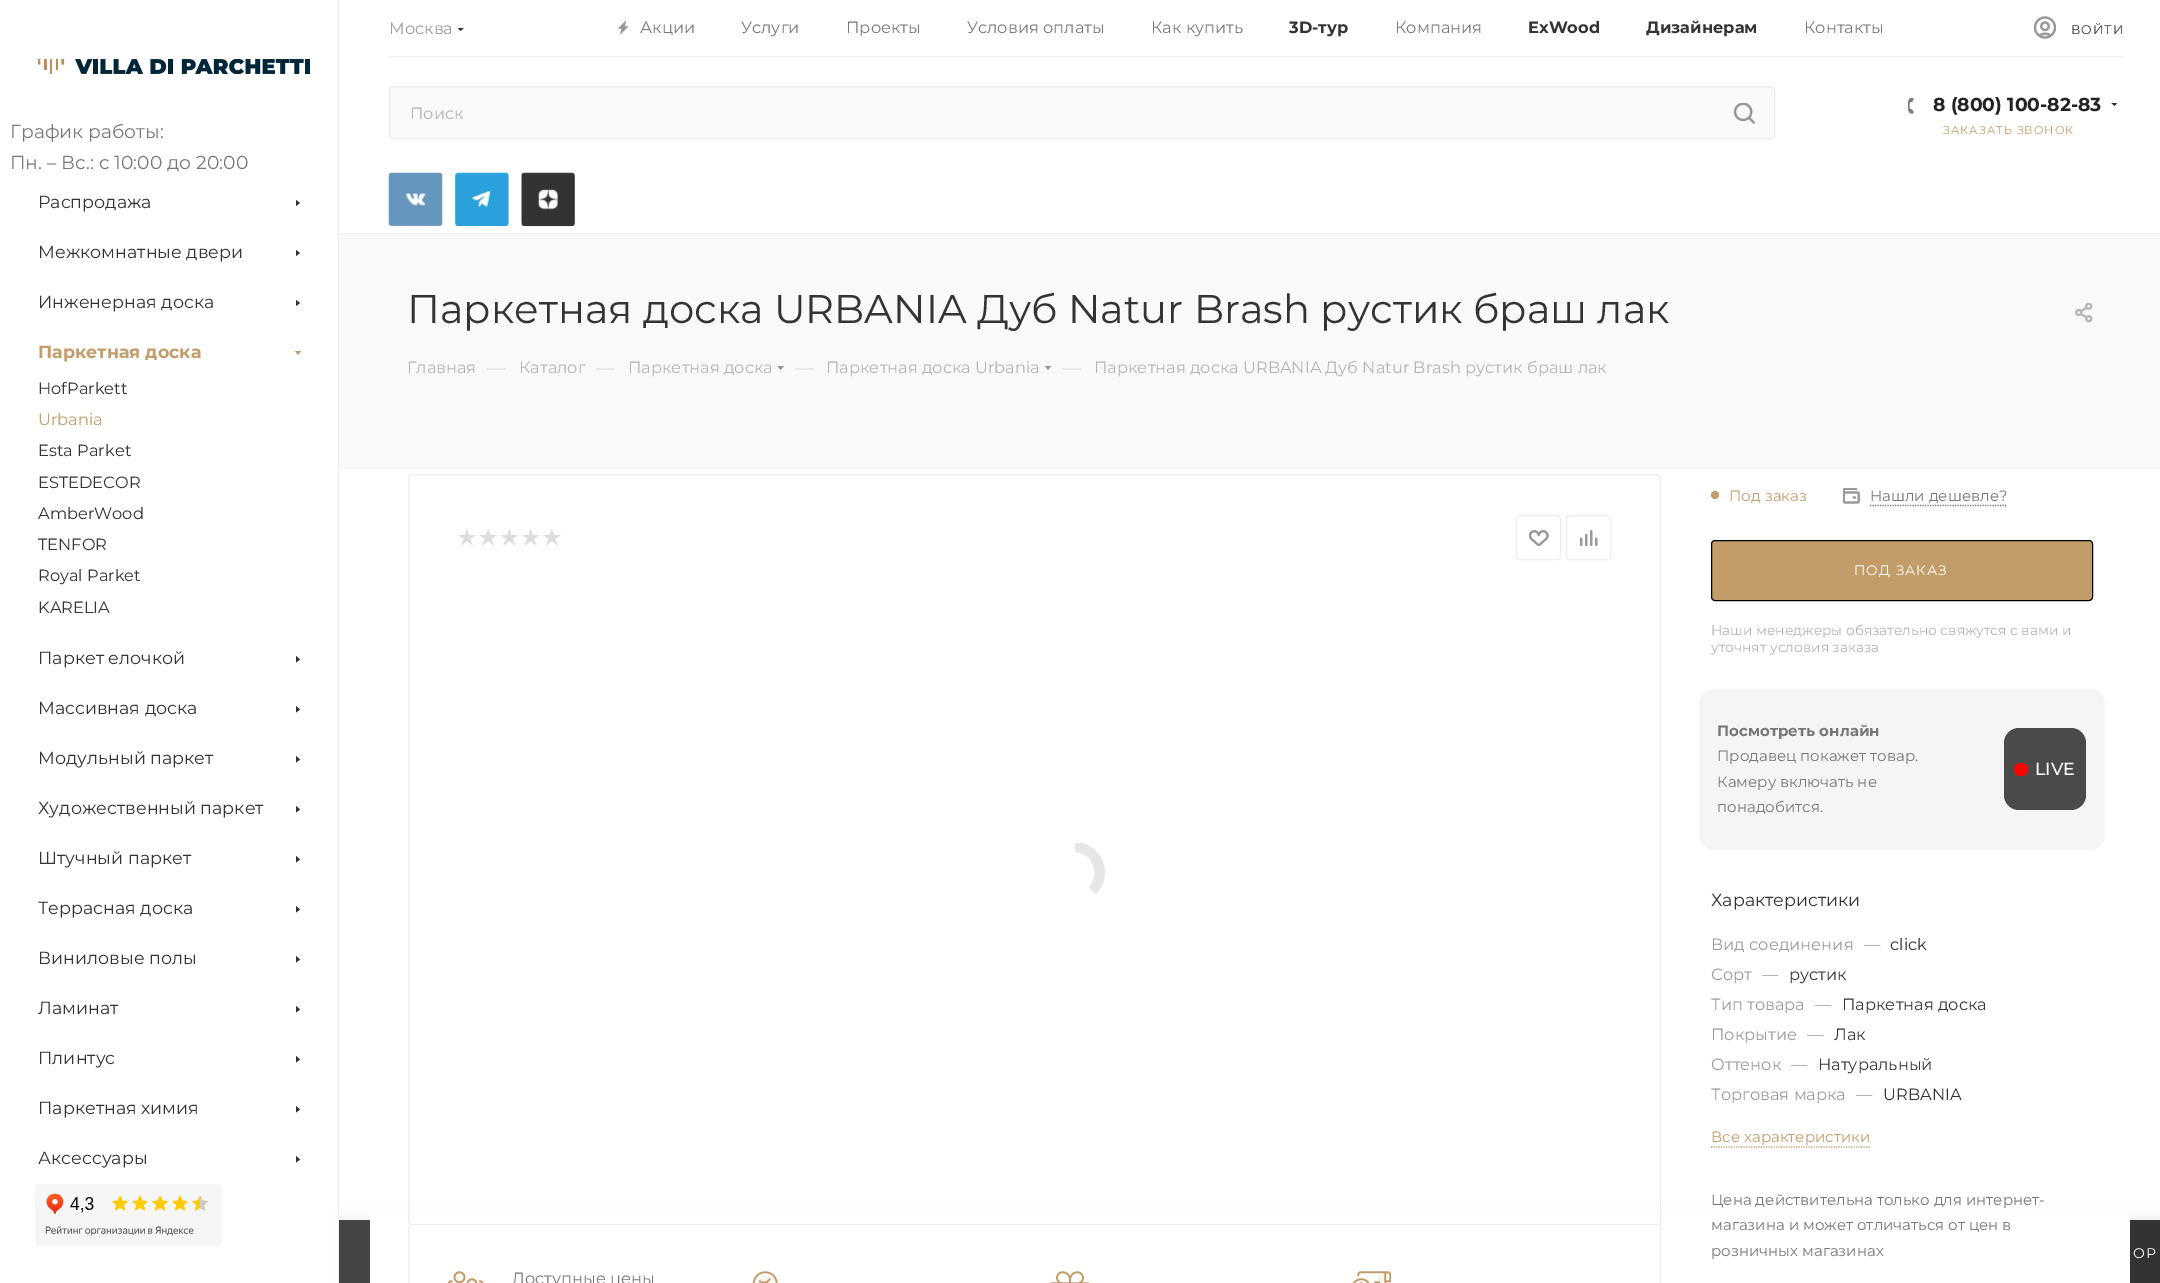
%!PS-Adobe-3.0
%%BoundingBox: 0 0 2160 1283
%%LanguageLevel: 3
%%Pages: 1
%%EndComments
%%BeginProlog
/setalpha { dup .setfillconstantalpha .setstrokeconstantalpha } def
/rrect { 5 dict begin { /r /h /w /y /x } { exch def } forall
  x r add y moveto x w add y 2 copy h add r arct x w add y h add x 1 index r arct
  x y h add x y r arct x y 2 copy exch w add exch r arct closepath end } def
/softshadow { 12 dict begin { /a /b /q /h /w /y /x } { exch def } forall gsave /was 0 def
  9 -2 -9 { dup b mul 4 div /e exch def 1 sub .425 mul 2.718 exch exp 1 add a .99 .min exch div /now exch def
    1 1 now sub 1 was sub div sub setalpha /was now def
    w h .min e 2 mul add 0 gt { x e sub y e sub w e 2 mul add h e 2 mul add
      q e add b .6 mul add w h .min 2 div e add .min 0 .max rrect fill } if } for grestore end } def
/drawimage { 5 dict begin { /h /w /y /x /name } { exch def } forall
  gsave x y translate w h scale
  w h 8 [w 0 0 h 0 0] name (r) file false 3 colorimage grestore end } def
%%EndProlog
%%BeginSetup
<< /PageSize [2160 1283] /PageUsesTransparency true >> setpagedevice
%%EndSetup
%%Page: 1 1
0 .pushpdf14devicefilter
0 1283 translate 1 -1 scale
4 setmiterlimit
1 setgray
0 0 2160 1283 rectfill
gsave
458 28 6 4 rectclip
0.2 setgray
newpath 457.5 27.5 moveto 464 27.5 lineto 460.5 31 lineto closepath eofill
grestore
(images/1.raw) 618 20 11 15 drawimage
(images/2.raw) 2034 16 22 23 drawimage
0.929 setgray
389 56 1734 1 rectfill
0.98 setgray
389.5 86.5 1385 52 3.5 rrect gsave fill grestore
0.925 setgray
stroke
(images/3.raw) 1734 103 21 21 drawimage
(images/4.raw) 388 172 55 55 drawimage
(images/5.raw) 455 172 54 55 drawimage
(images/6.raw) 521 172 54 55 drawimage
(images/7.raw) 1908 98 6 16 drawimage
gsave
2111 103 7 4 rectclip
0.2 setgray
newpath 2111 102.5 moveto 2117.5 102.5 lineto 2114.5 106 lineto closepath eofill
grestore
0.949 setgray
339 233 1821 1 rectfill
0 setgray
341 1220 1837 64 0 6 0.1 softshadow
1 setgray
333 1218 5 65 rectfill
0.933 setgray
338 0 1 1283 rectfill
(images/8.raw) 38 59 272 15 drawimage
0.2 setgray
newpath 296 206 moveto 296 200 lineto 300 203 lineto closepath eofill
newpath 296 256 moveto 296 250 lineto 300 253 lineto closepath eofill
newpath 296 306 moveto 296 300 lineto 300 303 lineto closepath eofill
0.761 0.612 0.412 setrgbcolor
newpath 295 351 moveto 301 351 lineto 298 355 lineto closepath eofill
0.2 setgray
newpath 296 662.5 moveto 296 656 lineto 300 659.5 lineto closepath eofill
newpath 296 712.5 moveto 296 706 lineto 300 709.5 lineto closepath eofill
newpath 296 762.5 moveto 296 756 lineto 300 759.5 lineto closepath eofill
newpath 296 812.5 moveto 296 806 lineto 300 809.5 lineto closepath eofill
newpath 296 862.5 moveto 296 856 lineto 300 859.5 lineto closepath eofill
newpath 296 912.5 moveto 296 906 lineto 300 909.5 lineto closepath eofill
newpath 296 962.5 moveto 296 956 lineto 300 959.5 lineto closepath eofill
newpath 296 1012.5 moveto 296 1006 lineto 300 1009.5 lineto closepath eofill
newpath 296 1062.5 moveto 296 1056 lineto 300 1059.5 lineto closepath eofill
newpath 296 1112.5 moveto 296 1106 lineto 300 1109.5 lineto closepath eofill
newpath 296 1162.5 moveto 296 1156 lineto 300 1159.5 lineto closepath eofill
(images/9.raw) 35 1184 187 62 drawimage
0.976 0.976 0.98 setrgbcolor
339 234 1821 235 rectfill
(images/10.raw) 2075 303 18 20 drawimage
0.588 0.588 0.592 setrgbcolor
newpath 777.5 366 moveto 784 366 lineto 780.5 370 lineto closepath eofill
newpath 1045 366 moveto 1051 366 lineto 1048 370 lineto closepath eofill
1 setgray
370 1212 1760 71 rectfill
0.761 0.612 0.412 setrgbcolor
newpath 1715 495 4 0 360 arc closepath fill
(images/11.raw) 1843 488 17 16 drawimage
0.467 setgray
1.2 setlinewidth
[1.25 1.25] 0 setdash
newpath 1870 505.5 moveto 2007.5 505.5 lineto stroke
0.761 0.612 0.412 setrgbcolor
1711.5 540.5 381 60 3.5 rrect gsave fill grestore
0 setgray
1 setlinewidth
[] 0 setdash
stroke
0.961 0.961 0.965 setrgbcolor
1699 689 406 161 15 rrect fill
0.29 setgray
2004 728 82 82 15 rrect fill
1 0 0 setrgbcolor
2014 763 14 13 6.5 rrect fill
0.761 0.612 0.412 setrgbcolor
1.2 setlinewidth
[1.25 1.25] 0 setdash
newpath 1711 1147 moveto 1870 1147 lineto stroke
0.925 setgray
1 setlinewidth
[] 0 setdash
408.5 474.5 1252 750 3.5 rrect stroke
(images/12.raw) 458 529 18 16 drawimage
(images/13.raw) 479 529 18 16 drawimage
(images/14.raw) 500 529 18 16 drawimage
(images/15.raw) 522 529 18 16 drawimage
(images/12.raw) 543 529 18 16 drawimage
0.933 setgray
1516.5 515.5 44 44 3.5 rrect stroke
(images/16.raw) 1529 530 20 16 drawimage
1566.5 515.5 44 44 3.5 rrect stroke
(images/17.raw) 1580 530 18 16 drawimage
gsave
1045 843 60 60 rectclip
0.902 setgray
newpath 1075 842 moveto 1102 843 1115 875 1096 894 curveto 1089 887 lineto 1101 874 1092 852 1075 852 curveto closepath fill
grestore
0.925 setgray
408.5 1224.5 1252 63 3.5 rrect stroke
1 setgray
409 1225 1251 2 rectfill
(images/18.raw) 448 1271 36 12 drawimage
(images/19.raw) 752 1271 26 12 drawimage
(images/20.raw) 1050 1271 40 12 drawimage
(images/21.raw) 1352 1271 39 12 drawimage
0.267 setgray
339 1220 31 63 rectfill
0.2 setgray
2130 1220 30 63 rectfill
/Montserrat-Regular [16.25 0 0 -16.25 0 0] selectfont
0.6 setgray
389 34 moveto (Москва) show
0.467 setgray
640 33 moveto (Акции) show
741 33 moveto (Услуги) show
846 33 moveto (Проекты) show
967 33 moveto (Условия оплаты) show
1151 33 moveto (Как купить) show
/Montserrat-Bold [16.25 0 0 -16.25 0 0] selectfont
0.2 setgray
1289 33 moveto (3D-тур) show
/Montserrat-Regular [16.25 0 0 -16.25 0 0] selectfont
0.467 setgray
1395 33 moveto (Компания) show
/Montserrat-Bold [16.25 0 0 -16.25 0 0] selectfont
0.2 setgray
1528 33 moveto (ExWood) show
1646 33 moveto (Дизайнерам) show
/Montserrat-Regular [16.25 0 0 -16.25 0 0] selectfont
0.467 setgray
1804 33 moveto (Контакты) show
/Montserrat-Regular [12.5 0 0 -12.5 0 0] selectfont
0.2 setgray
2071 34 moveto 1 0 (ВОЙТИ) ashow
/Montserrat-Regular [16.25 0 0 -16.25 0 0] selectfont
0.702 setgray
410 119 moveto (Поиск) show
/Montserrat-Bold [18.75 0 0 -18.75 0 0] selectfont
0.133 setgray
1933 111 moveto (8 \(800\) 100-82-83) show
/Montserrat-Regular [11.25 0 0 -11.25 0 0] selectfont
0.761 0.612 0.412 setrgbcolor
1943 134 moveto 1 0 (ЗАКАЗАТЬ ЗВОНОК) ashow
/Montserrat-Regular [18.75 0 0 -18.75 0 0] selectfont
0.467 setgray
10 138 moveto (График работы:) show
10 169 moveto (Пн. – Вс.: с 10:00 до 20:00) show
/Montserrat-Regular [17.5 0 0 -17.5 0 0] selectfont
0.2 setgray
38 208 moveto (Распродажа) show
38 258 moveto (Межкомнатные двери) show
38 308 moveto (Инженерная доска) show
/Montserrat-Bold [17.5 0 0 -17.5 0 0] selectfont
0.761 0.612 0.412 setrgbcolor
38 358 moveto (Паркетная доска) show
/Montserrat-Regular [16.25 0 0 -16.25 0 0] selectfont
0.2 setgray
38 394 moveto (HofParkett) show
0.761 0.612 0.412 setrgbcolor
38 425 moveto (Urbania) show
0.2 setgray
38 456 moveto (Esta Parket) show
38 488 moveto (ESTEDEСOR) show
38 519 moveto (AmberWood) show
38 550 moveto (TENFOR) show
38 581 moveto (Royal Parket) show
38 613 moveto (KARELIA) show
/Montserrat-Regular [17.5 0 0 -17.5 0 0] selectfont
38 664 moveto (Паркет елочкой) show
38 714 moveto (Массивная доска) show
38 764 moveto (Модульный паркет) show
38 814 moveto (Художественный паркет) show
38 864 moveto (Штучный паркет) show
38 914 moveto (Террасная доска) show
38 964 moveto (Виниловые полы) show
38 1014 moveto (Ламинат) show
38 1064 moveto (Плинтус) show
38 1114 moveto (Паркетная химия) show
38 1164 moveto (Аксессуары) show
/Montserrat-Regular [40 0 0 -40 0 0] selectfont
407 323 moveto (Паркетная доска URBANIA Дуб Natur Brash рустик браш лак) show
/Montserrat-Regular [16.25 0 0 -16.25 0 0] selectfont
0.702 setgray
407 373 moveto (Главная) show
/Montserrat-Regular [18.75 0 0 -18.75 0 0] selectfont
0.867 setgray
487 374 moveto (—) show
/Montserrat-Regular [16.25 0 0 -16.25 0 0] selectfont
0.702 setgray
519 373 moveto (Каталог) show
/Montserrat-Regular [18.75 0 0 -18.75 0 0] selectfont
0.867 setgray
596 374 moveto (—) show
/Montserrat-Regular [16.25 0 0 -16.25 0 0] selectfont
0.702 setgray
628 373 moveto (Паркетная доска) show
/Montserrat-Regular [18.75 0 0 -18.75 0 0] selectfont
0.867 setgray
795 374 moveto (—) show
/Montserrat-Regular [16.25 0 0 -16.25 0 0] selectfont
0.702 setgray
826 373 moveto (Паркетная доска Urbania) show
/Montserrat-Regular [18.75 0 0 -18.75 0 0] selectfont
0.867 setgray
1062 374 moveto (—) show
/Montserrat-Regular [16.25 0 0 -16.25 0 0] selectfont
0.702 setgray
1094 373 moveto (Паркетная доска URBANIA Дуб Natur Brash рустик браш лак) show
/Montserrat-Regular [15 0 0 -15 0 0] selectfont
0.761 0.612 0.412 setrgbcolor
1729 501 moveto (Под заказ) show
0.467 setgray
1870 501 moveto (Нашли дешевле?) show
/Montserrat-Regular [13.75 0 0 -13.75 0 0] selectfont
1 setgray
1854 575 moveto 1 0 (ПОД ЗАКАЗ) ashow
0.702 setgray
1711 635 moveto (Наши менеджеры обязательно свяжутся с вами и) show
1711 652 moveto (уточнят условия заказа) show
/Montserrat-Bold [15 0 0 -15 0 0] selectfont
0.467 setgray
1717 736 moveto (Посмотреть онлайн) show
/Montserrat-Regular [15 0 0 -15 0 0] selectfont
1717 761 moveto (Продавец покажет товар.) show
1717 787 moveto (Камеру включать не) show
1717 812 moveto (понадобится.) show
/Montserrat-Medium [17.5 0 0 -17.5 0 0] selectfont
1 setgray
2035 775 moveto (LIVE) show
/Montserrat-Regular [17.5 0 0 -17.5 0 0] selectfont
0.2 setgray
1711 906 moveto (Характеристики) show
/Montserrat-Regular [16.25 0 0 -16.25 0 0] selectfont
0.6 setgray
1711 950 moveto (Вид соединения) show
1864 950 moveto (—) show
0.2 setgray
1890 950 moveto (click) show
0.6 setgray
1711 980 moveto (Сорт) show
1762 980 moveto (—) show
0.2 setgray
1789 980 moveto (рустик) show
0.6 setgray
1711 1010 moveto (Тип товара) show
1815 1010 moveto (—) show
0.2 setgray
1842 1010 moveto (Паркетная доска) show
0.6 setgray
1711 1040 moveto (Покрытие) show
1807 1040 moveto (—) show
0.2 setgray
1834 1040 moveto (Лак) show
0.6 setgray
1711 1070 moveto (Оттенок) show
1791 1070 moveto (—) show
0.2 setgray
1818 1070 moveto (Натуральный) show
0.6 setgray
1711 1100 moveto (Торговая марка) show
1856 1100 moveto (—) show
0.2 setgray
1883 1100 moveto (URBANIA) show
/Montserrat-Regular [15 0 0 -15 0 0] selectfont
0.761 0.612 0.412 setrgbcolor
1711 1142 moveto (Все характеристики) show
0.467 setgray
1711 1205 moveto (Цена действительна только для интернет-) show
1711 1230 moveto (магазина и может отличаться от цен в) show
1711 1256 moveto (розничных магазинах) show
/Montserrat-Regular [16.25 0 0 -16.25 0 0] selectfont
512 1284 moveto (Доступные цены) show
/Montserrat-Regular [14 0 0 -14 0 0] selectfont
1 setgray
2133 1258 moveto 1 0 (ОР) ashow
.poppdf14devicefilter showpage
%%EOF
